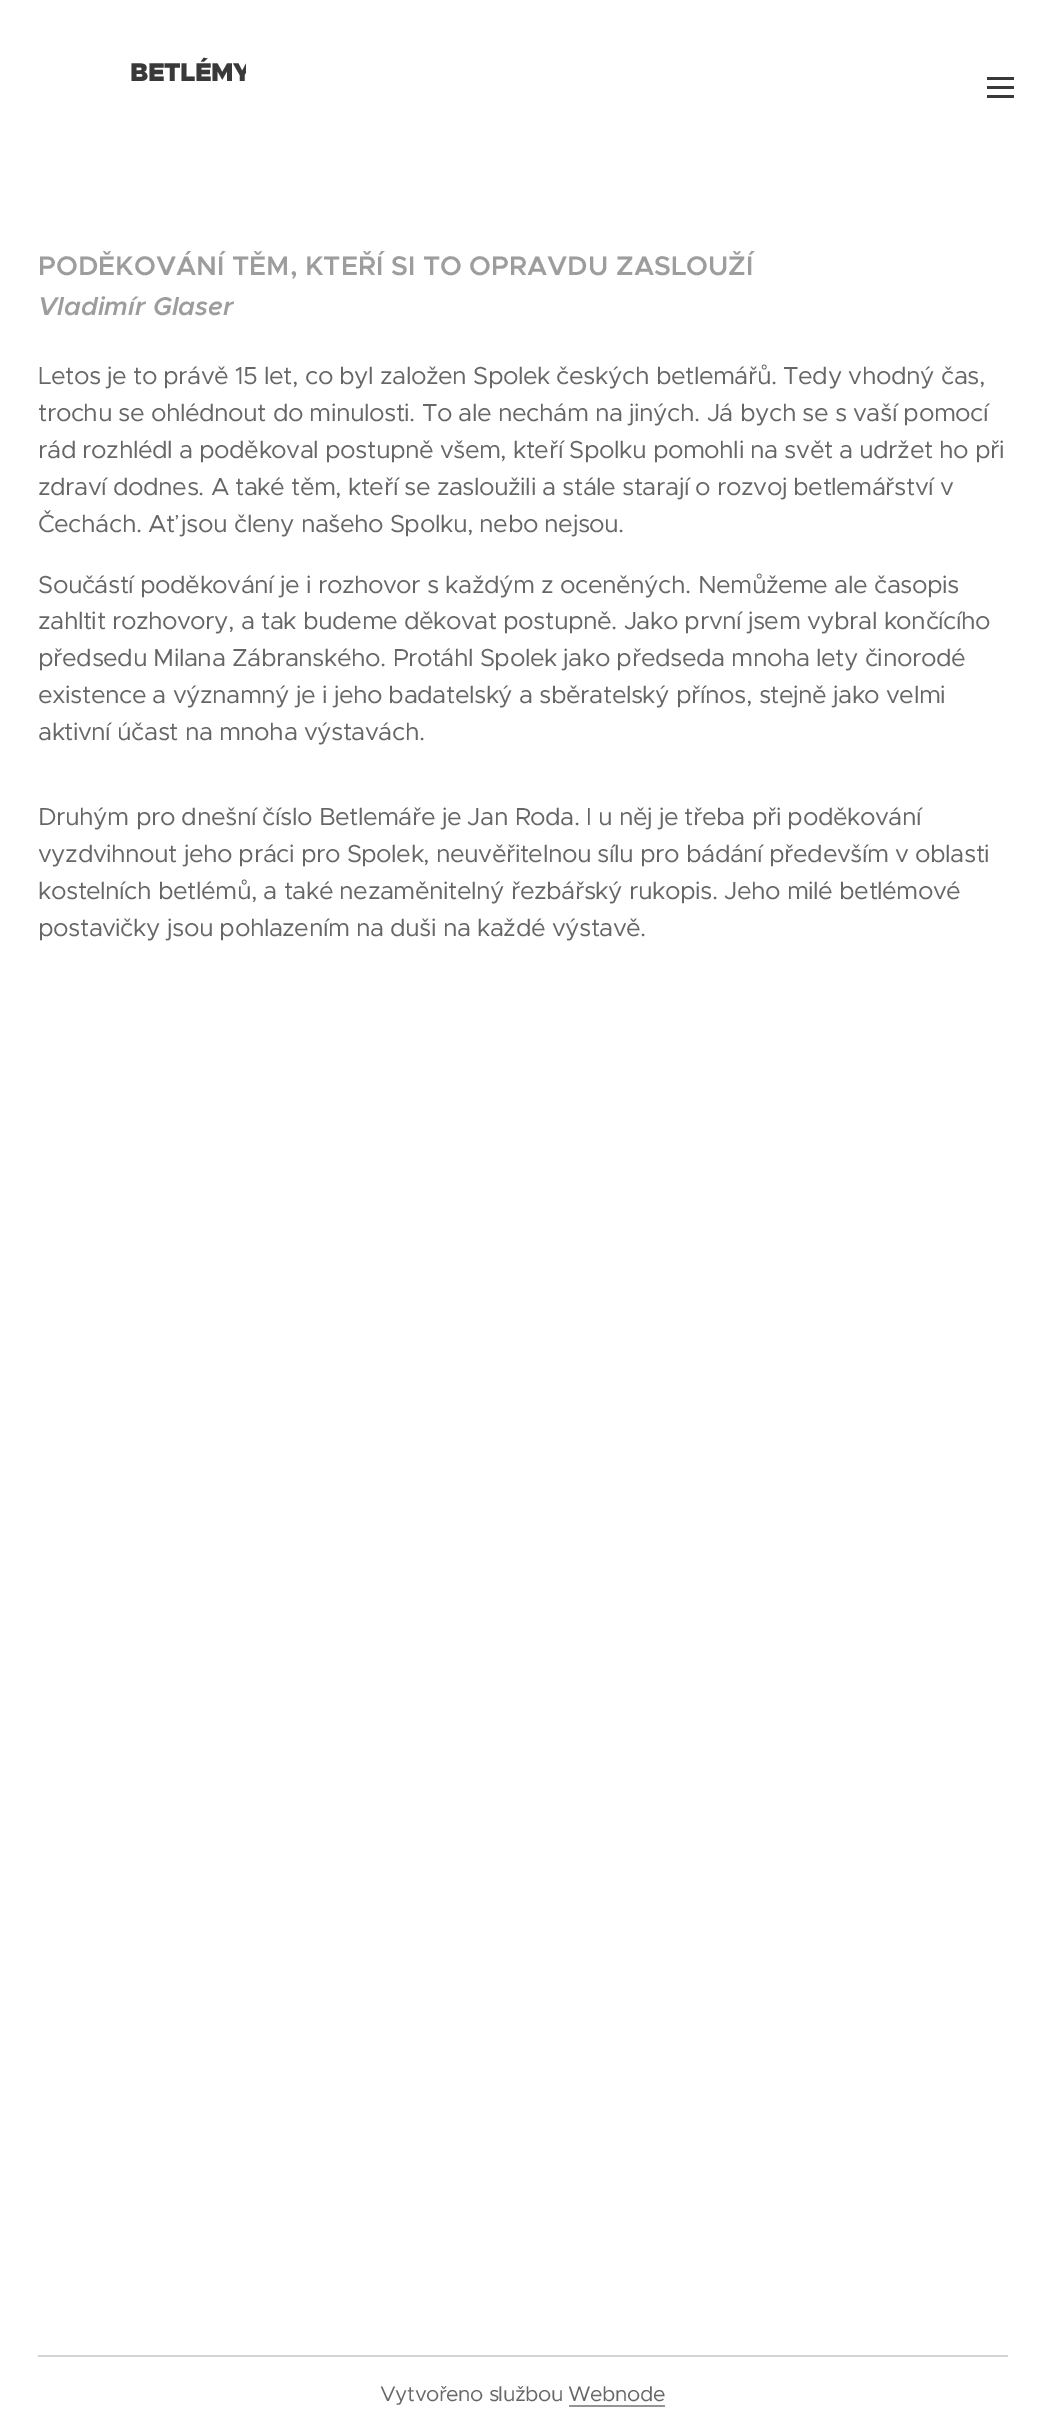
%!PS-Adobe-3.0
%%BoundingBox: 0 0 1045 2432
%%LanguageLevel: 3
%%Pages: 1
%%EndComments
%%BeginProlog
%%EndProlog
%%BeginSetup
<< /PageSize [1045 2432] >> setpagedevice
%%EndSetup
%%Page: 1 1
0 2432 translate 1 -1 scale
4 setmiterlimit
1 setgray
0 0 1045 2432 rectfill
0.224 setgray
987 86 27 3 rectfill
987 77 27 3 rectfill
987 95 27 3 rectfill
0.831 setgray
38 2355 970 2 rectfill
0.58 setgray
569 2405 96 2 rectfill
gsave
125 54 121 41 rectclip
/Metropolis-Black [25.75 0 0 -25.75 0 0] selectfont
0.224 setgray
130 81 moveto -0.5 0 (BETLÉMY) ashow
grestore
/Metropolis-SemiBold [27 0 0 -27 0 0] selectfont
0.616 setgray
38 275 moveto (PODĚKOVÁNÍ TĚM, KTEŘÍ SI TO OPRAVDU ZASLOUŽÍ) show
/Metropolis-SemiBoldItalic [25.75 0 0 -25.75 0 0] selectfont
38 315 moveto (Vladimír Glaser) show
/Metropolis-Regular [24.6 0 0 -24.6 0 0] selectfont
0.4 setgray
38 384 moveto -0.5 0 (Letos je to právě 15 let, co byl založen Spolek českých betlemářů. Tedy vhodný čas,) ashow
38 421 moveto -0.5 0 (trochu se ohlédnout do minulosti. To ale nechám na jiných. Já bych se s vaší pomocí) ashow
38 458 moveto -0.5 0 (rád rozhlédl a poděkoval postupně všem, kteří Spolku pomohli na svět a udržet ho při) ashow
38 495 moveto -0.5 0 (zdraví dodnes. A také těm, kteří se zasloužili a stále starají o rozvoj betlemářství v) ashow
38 532 moveto -0.5 0 (Čechách. Ať jsou členy našeho Spolku, nebo nejsou.) ashow
38 593 moveto -0.5 0 (Součástí poděkování je i rozhovor s každým z oceněných. Nemůžeme ale časopis) ashow
38 629 moveto -0.5 0 (zahltit rozhovory, a tak budeme děkovat postupně. Jako první jsem vybral končícího) ashow
38 666 moveto -0.5 0 (předsedu Milana Zábranského. Protáhl Spolek jako předseda mnoha lety činorodé) ashow
38 703 moveto -0.5 0 (existence a významný je i jeho badatelský a sběratelský přínos, stejně jako velmi) ashow
38 740 moveto -0.5 0 (aktivní účast na mnoha výstavách.) ashow
38 825 moveto -0.5 0 (Druhým pro dnešní číslo Betlemáře je Jan Roda. I u něj je třeba při poděkování) ashow
38 862 moveto -0.5 0 (vyzdvihnout jeho práci pro Spolek, neuvěřitelnou sílu pro bádání především v oblasti) ashow
38 899 moveto -0.5 0 (kostelních betlémů, a také nezaměnitelný řezbářský rukopis. Jeho milé betlémové) ashow
38 936 moveto -0.5 0 (postavičky jsou pohlazením na duši na každé výstavě.) ashow
/Metropolis-Regular [21 0 0 -21 0 0] selectfont
380 2401 moveto -0.5 0 (Vytvořeno službou Webnode) ashow
showpage
%%EOF
